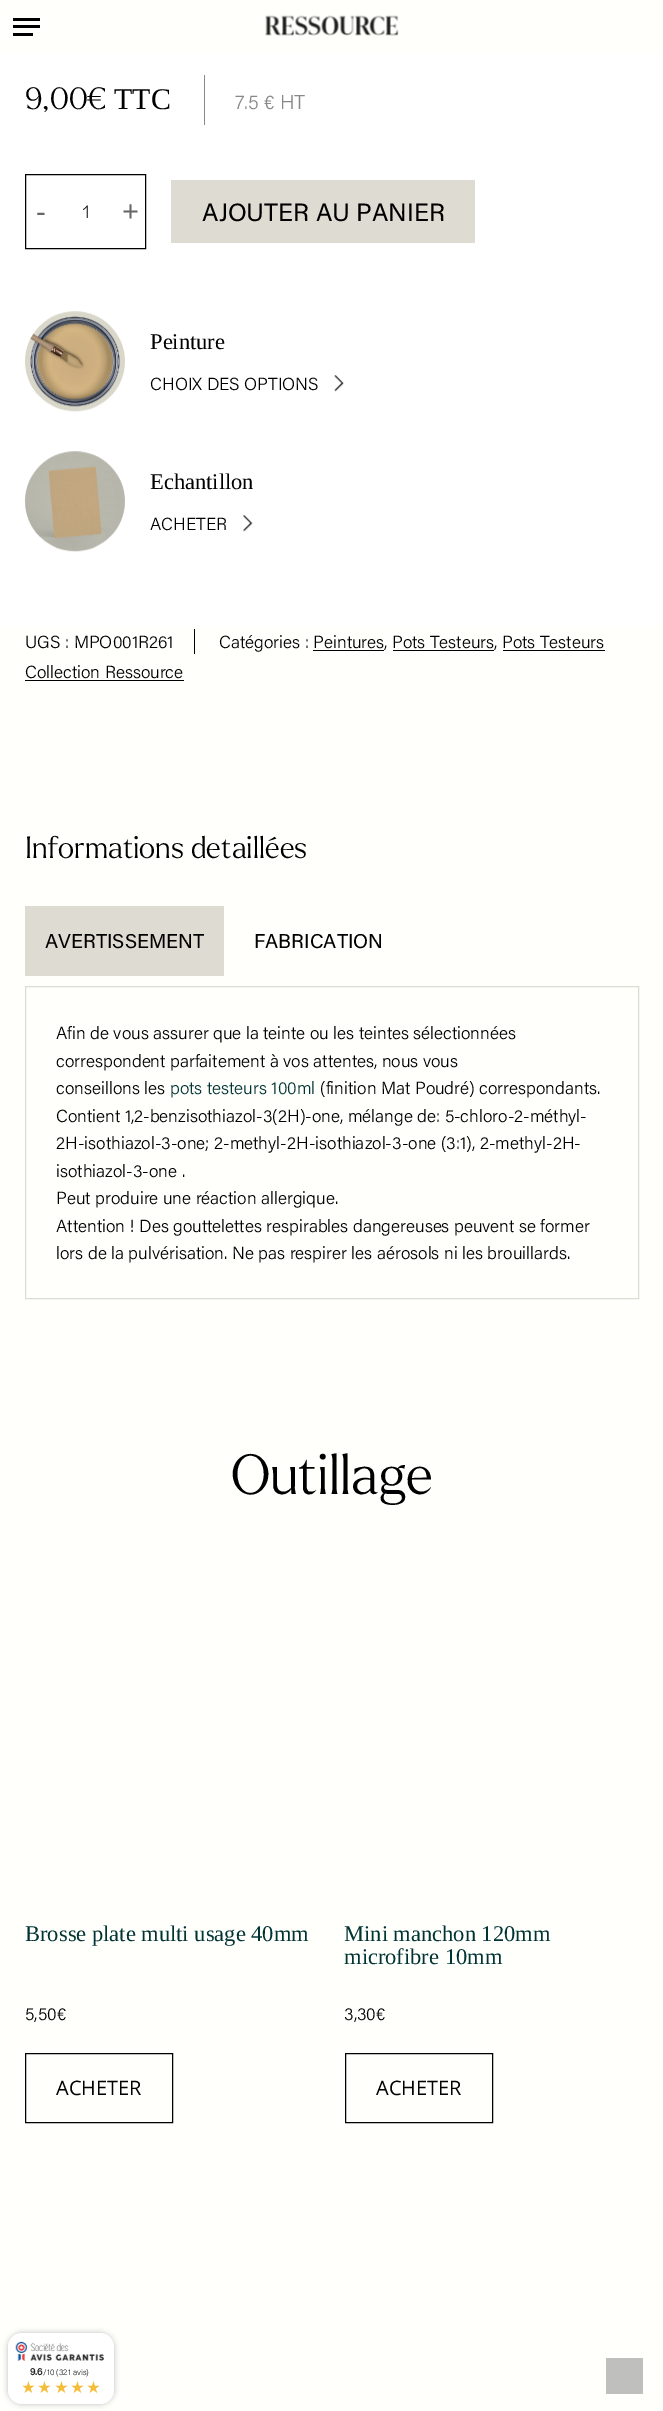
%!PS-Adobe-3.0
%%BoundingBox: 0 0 663 2411
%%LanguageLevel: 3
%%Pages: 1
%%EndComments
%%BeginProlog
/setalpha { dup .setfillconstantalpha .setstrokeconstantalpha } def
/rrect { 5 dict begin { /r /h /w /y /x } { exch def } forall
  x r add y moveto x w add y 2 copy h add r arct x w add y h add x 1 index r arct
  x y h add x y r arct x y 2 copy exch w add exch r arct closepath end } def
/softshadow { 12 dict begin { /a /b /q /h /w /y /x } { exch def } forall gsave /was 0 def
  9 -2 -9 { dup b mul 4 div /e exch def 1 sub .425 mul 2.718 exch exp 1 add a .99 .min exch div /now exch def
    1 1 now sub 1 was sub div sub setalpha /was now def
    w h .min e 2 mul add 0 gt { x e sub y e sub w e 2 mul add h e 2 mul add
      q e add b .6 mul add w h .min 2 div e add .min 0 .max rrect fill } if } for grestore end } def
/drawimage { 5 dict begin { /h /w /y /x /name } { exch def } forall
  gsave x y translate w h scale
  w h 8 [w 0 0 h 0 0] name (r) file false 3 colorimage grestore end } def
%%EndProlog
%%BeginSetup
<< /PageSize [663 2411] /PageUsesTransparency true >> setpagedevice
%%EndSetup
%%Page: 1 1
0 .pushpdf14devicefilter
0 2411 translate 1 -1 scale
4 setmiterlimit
1 1 0.988 setrgbcolor
0 0 663 2411 rectfill
0 setgray
13 18 27 3 rectfill
13 33 20 3 rectfill
13 25 27 3 rectfill
(images/1.raw) 265 15 134 21 drawimage
1 setgray
0 53 663 573 rectfill
0.533 setgray
204 75 1 50 rectfill
0 setgray
25.5 174.5 120 74 rectstroke
0.871 0.863 0.824 setrgbcolor
171 180 304 63 rectfill
(images/2.raw) 25 311 100 101 drawimage
(images/3.raw) 334 375 10 17 drawimage
(images/4.raw) 25 451 100 101 drawimage
(images/5.raw) 243 515 10 17 drawimage
0 setgray
194 629 1 25 rectfill
313 650 71 1 rectfill
393 650 101 1 rectfill
503 650 102 1 rectfill
25 680 159 1 rectfill
0.871 0.863 0.824 setrgbcolor
25 906 199 70 rectfill
25.5 986.5 613 312 rectstroke
0 setgray
25.5 2053.5 147 69 rectstroke
345.5 2053.5 147 69 rectstroke
0.749 0.749 0.741 setrgbcolor
606 2358 37 36 rectfill
0 setgray
8 2333 106 71 14 3 0.25 softshadow
1 setgray
8 2333 106 71 14 rrect fill
(images/6.raw) 15 2341 89 20 drawimage
/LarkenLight-Light [30 0 0 -30 0 0] selectfont
0 setgray
25 109 moveto (9,00€) show
/LiberationSerif-Regular [30 0 0 -30 0 0] selectfont
114 109 moveto (TTC) show
/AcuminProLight-Light [20 0 0 -20 0 0] selectfont
0.533 setgray
235 109 moveto (7.5 € HT) show
/OpenSans-Regular [30 0 0 -30 0 0] selectfont
0.4 setgray
36 222 moveto (-) show
/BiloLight-Light [19 0 0 -19 0 0] selectfont
0 setgray
82 218 moveto (1) show
/OpenSans-Regular [30 0 0 -30 0 0] selectfont
0.4 setgray
122 222 moveto (+) show
/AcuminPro-Regular [25 0 0 -25 0 0] selectfont
0 setgray
202 221 moveto (AJOUTER AU PANIER) show
/LiberationSerif-Regular [22.5 0 0 -22.5 0 0] selectfont
150 349 moveto (Peinture) show
/AcuminProLight-Light [17.5 0 0 -17.5 0 0] selectfont
150 390 moveto (CHOIX DES OPTIONS) show
/LiberationSerif-Regular [22.5 0 0 -22.5 0 0] selectfont
150 489 moveto (Echantillon) show
/AcuminProLight-Light [17.5 0 0 -17.5 0 0] selectfont
150 530 moveto (ACHETER) show
25 648 moveto (UGS : MPO001R261) show
219 648 moveto (Catégories : Peintures) show
384 648 moveto (, Pots Testeurs) show
494 648 moveto (, Pots Testeurs) show
25 678 moveto (Collection Ressource) show
/LarkenLight-Light [30 0 0 -30 0 0] selectfont
25 858 moveto (Informations detaillées) show
/AcuminPro-Regular [20 0 0 -20 0 0] selectfont
45 948 moveto (AVERTISSEMENT) show
254 948 moveto (FABRICATION) show
/AcuminProLight-Light [17.5 0 0 -17.5 0 0] selectfont
56 1039 moveto (Afin de vous assurer que la teinte ou les teintes sélectionnées) show
56 1067 moveto (correspondent parfaitement à vos attentes, nous vous) show
56 1094 moveto (conseillons les) show
0 0.2 0.2 setrgbcolor
170 1094 moveto (pots testeurs 100ml) show
0 setgray
320 1094 moveto (\(finition Mat Poudré\) correspondants.) show
56 1122 moveto (Contient 1,2-benzisothiazol-3\(2H\)-one, mélange de: 5-chloro-2-méthyl-) show
56 1149 moveto (2H-isothiazol-3-one; 2-methyl-2H-isothiazol-3-one \(3:1\), 2-methyl-2H-) show
56 1177 moveto (isothiazol-3-one .) show
56 1204 moveto (Peut produire une réaction allergique.) show
56 1232 moveto (Attention ! Des gouttelettes respirables dangereuses peuvent se former) show
56 1259 moveto (lors de la pulvérisation. Ne pas respirer les aérosols ni les brouillards.) show
/LarkenLight-Light [55 0 0 -55 0 0] selectfont
231 1494 moveto (Outillage) show
/LiberationSerif-Regular [22.5 0 0 -22.5 0 0] selectfont
0 0.2 0.2 setrgbcolor
25 1941 moveto (Brosse plate multi usage 40mm) show
/AcuminProLight-Light [17.5 0 0 -17.5 0 0] selectfont
0 setgray
25 2020 moveto (5,50€) show
/OpenSans-Regular [20 0 0 -20 0 0] selectfont
56 2095 moveto (ACHETER) show
/LiberationSerif-Regular [22.5 0 0 -22.5 0 0] selectfont
0 0.2 0.2 setrgbcolor
344 1941 moveto (Mini manchon 120mm) show
344 1964 moveto (microfibre 10mm) show
/AcuminProLight-Light [17.5 0 0 -17.5 0 0] selectfont
0 setgray
344 2020 moveto (3,30€) show
/OpenSans-Regular [20 0 0 -20 0 0] selectfont
376 2095 moveto (ACHETER) show
/AcuminPro-Bold [10 0 0 -10 0 0] selectfont
0.133 setgray
30 2375 moveto (9.6) show
/AcuminProLight-Light [8.25 0 0 -8.25 0 0] selectfont
43 2375 moveto (/10 \(321 avis\)) show
/DejaVuSans-Regular [16.5 0 0 -16.5 0 0] selectfont
0.957 0.741 0.227 setrgbcolor
21 2393 moveto 1.5 0 (★★★★★) ashow
.poppdf14devicefilter showpage
%%EOF
